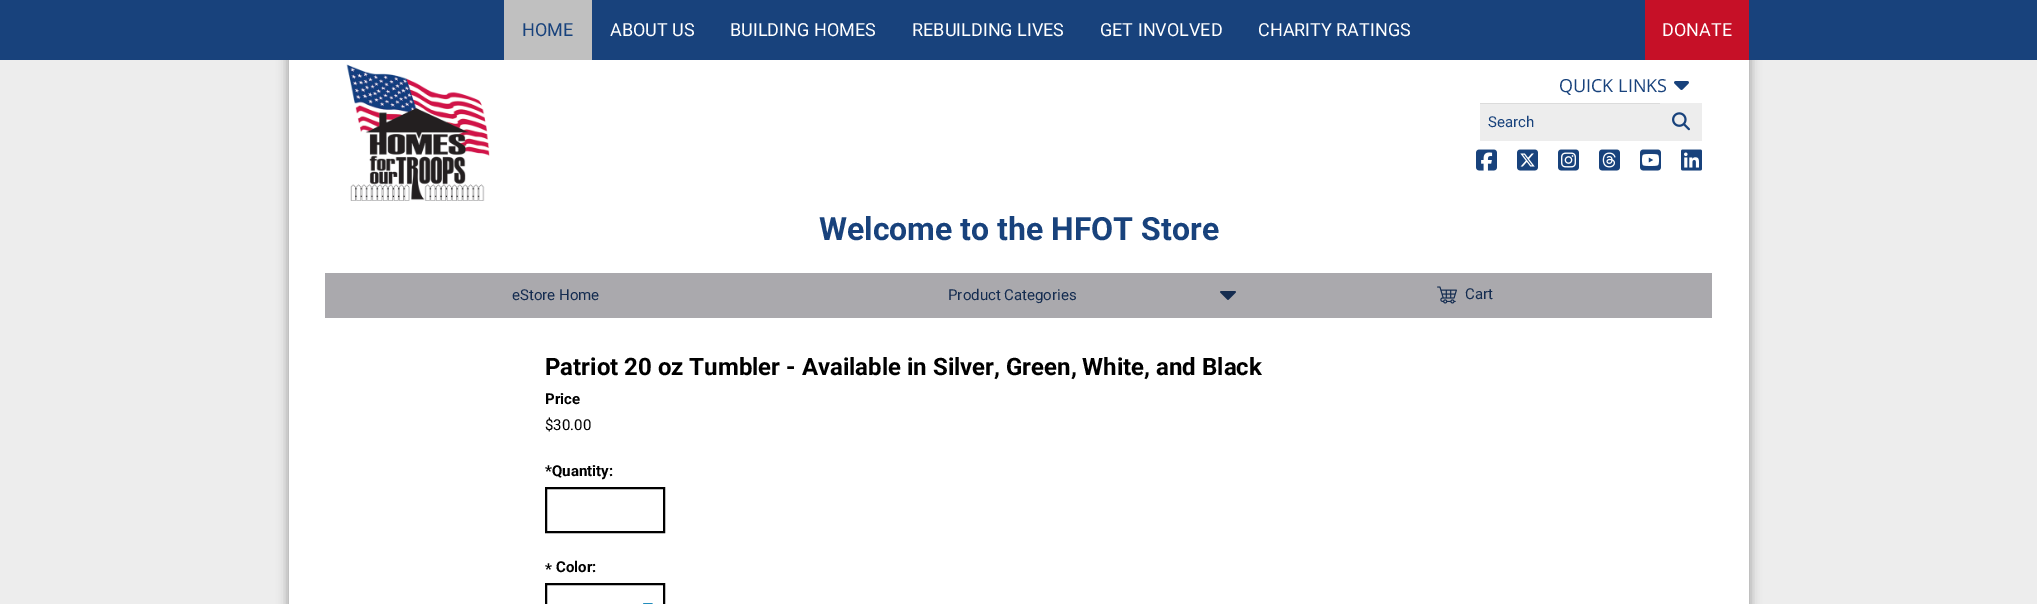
%!PS-Adobe-3.0
%%BoundingBox: 0 0 2037 604
%%LanguageLevel: 3
%%Pages: 1
%%EndComments
%%BeginProlog
/setalpha { dup .setfillconstantalpha .setstrokeconstantalpha } def
/rrect { 5 dict begin { /r /h /w /y /x } { exch def } forall
  x r add y moveto x w add y 2 copy h add r arct x w add y h add x 1 index r arct
  x y h add x y r arct x y 2 copy exch w add exch r arct closepath end } def
/softshadow { 12 dict begin { /a /b /q /h /w /y /x } { exch def } forall gsave /was 0 def
  9 -2 -9 { dup b mul 4 div /e exch def 1 sub .425 mul 2.718 exch exp 1 add a .99 .min exch div /now exch def
    1 1 now sub 1 was sub div sub setalpha /was now def
    w h .min e 2 mul add 0 gt { x e sub y e sub w e 2 mul add h e 2 mul add
      q e add b .6 mul add w h .min 2 div e add .min 0 .max rrect fill } if } for grestore end } def
/drawimage { 5 dict begin { /h /w /y /x /name } { exch def } forall
  gsave x y translate w h scale
  w h 8 [w 0 0 h 0 0] name (r) file false 3 colorimage grestore end } def
%%EndProlog
%%BeginSetup
<< /PageSize [2037 604] /PageUsesTransparency true >> setpagedevice
%%EndSetup
%%Page: 1 1
0 .pushpdf14devicefilter
0 604 translate 1 -1 scale
4 setmiterlimit
0.929 setgray
0 0 2037 604 rectfill
0 setgray
287 54 1464 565 0 5 0.3 softshadow
1 setgray
289 60 1460 544 rectfill
0.094 0.259 0.486 setrgbcolor
0 0 2037 60 rectfill
0.753 setgray
504 0 88 60 rectfill
0.776 0.063 0.153 setrgbcolor
1645 0 104 60 rectfill
(images/1.raw) 346 64 144 137 drawimage
(images/2.raw) 1674 81 15 9 drawimage
0.929 setgray
1480 104 180 37 rectfill
0.859 setgray
1480 103 181 1 rectfill
0.929 setgray
1660 103 42 38 rectfill
(images/3.raw) 1672 112 18 19 drawimage
(images/4.raw) 1476 149 21 22 drawimage
(images/5.raw) 1517 149 21 22 drawimage
(images/6.raw) 1558 149 21 22 drawimage
(images/7.raw) 1599 149 21 22 drawimage
(images/8.raw) 1640 149 21 22 drawimage
(images/9.raw) 1681 149 21 22 drawimage
0.667 0.663 0.678 setrgbcolor
325 273 1387 45 rectfill
(images/10.raw) 1220 291 16 9 drawimage
(images/11.raw) 1437 286 20 18 drawimage
0 setgray
2 setlinewidth
546 488 118 44 rectstroke
(images/12.raw) 643 603 10 1 drawimage
546 584 118 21 rectstroke
/Roboto-Regular [18 0 0 -18 0 0] selectfont
0.094 0.259 0.486 setrgbcolor
522 36 moveto (HOME) show
1 setgray
610 36 moveto (ABOUT US) show
730 36 moveto (BUILDING HOMES) show
912 36 moveto (REBUILDING LIVES) show
1100 36 moveto (GET INVOLVED) show
1258 36 moveto (CHARITY RATINGS) show
1662 36 moveto (DONATE) show
/OpenSans-Regular [18 0 0 -18 0 0] selectfont
0.094 0.259 0.486 setrgbcolor
1559 92 moveto (QUICK LINKS) show
/Roboto-Regular [15 0 0 -15 0 0] selectfont
1488 127 moveto (Search) show
/Roboto-Bold [32 0 0 -32 0 0] selectfont
819 240 moveto (Welcome to the HFOT Store) show
/Roboto-Regular [15 0 0 -15 0 0] selectfont
0.078 0.173 0.314 setrgbcolor
512 300 moveto (eStore Home) show
948 300 moveto (Product Categories) show
1465 299 moveto (Cart) show
/Roboto-Bold [24 0 0 -24 0 0] selectfont
0 setgray
545 375 moveto (Patriot 20 oz Tumbler - Available in Silver, Green, White, and Black) show
/Roboto-Bold [15 0 0 -15 0 0] selectfont
545 404 moveto (Price) show
/Roboto-Regular [15 0 0 -15 0 0] selectfont
545 430 moveto ($30.00) show
/Roboto-Bold [15 0 0 -15 0 0] selectfont
545 476 moveto (*Quantity:) show
545 574 moveto (*) show
556 572 moveto (Color:) show
.poppdf14devicefilter showpage
%%EOF
